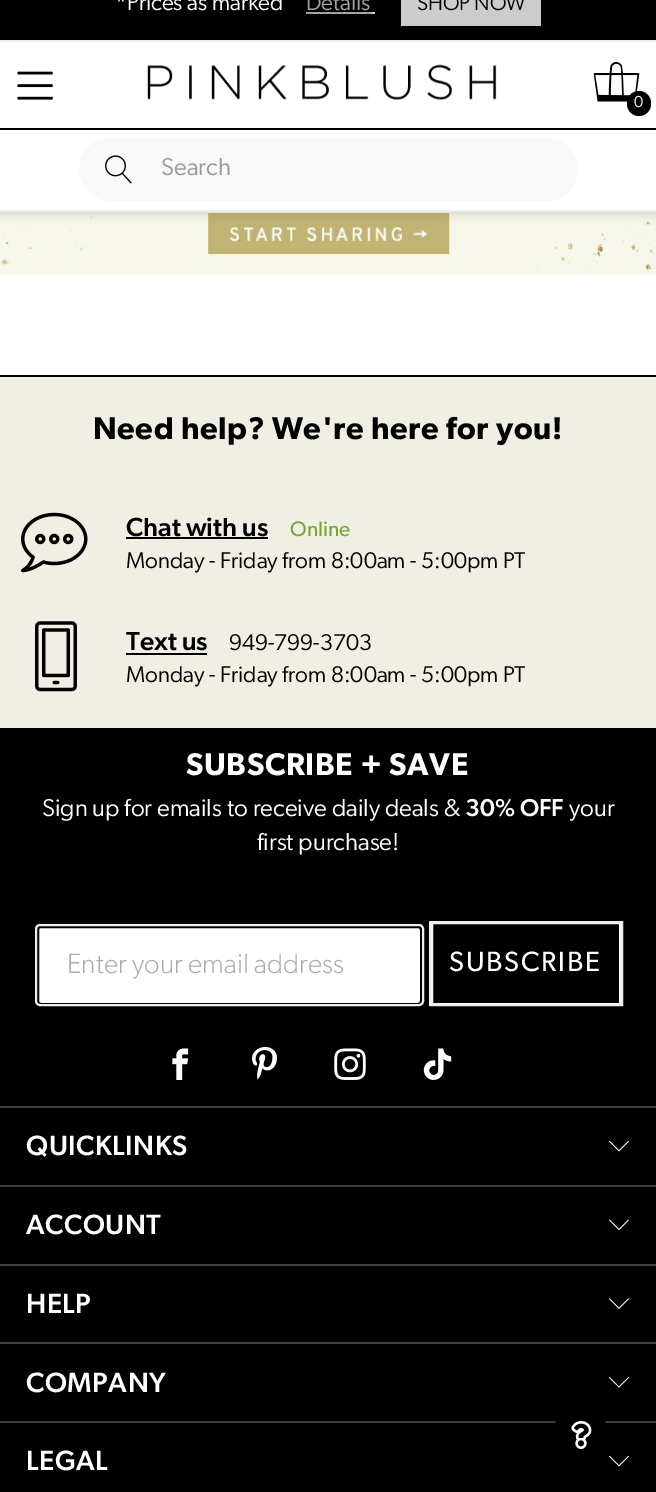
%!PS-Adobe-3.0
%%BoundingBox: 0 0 656 1492
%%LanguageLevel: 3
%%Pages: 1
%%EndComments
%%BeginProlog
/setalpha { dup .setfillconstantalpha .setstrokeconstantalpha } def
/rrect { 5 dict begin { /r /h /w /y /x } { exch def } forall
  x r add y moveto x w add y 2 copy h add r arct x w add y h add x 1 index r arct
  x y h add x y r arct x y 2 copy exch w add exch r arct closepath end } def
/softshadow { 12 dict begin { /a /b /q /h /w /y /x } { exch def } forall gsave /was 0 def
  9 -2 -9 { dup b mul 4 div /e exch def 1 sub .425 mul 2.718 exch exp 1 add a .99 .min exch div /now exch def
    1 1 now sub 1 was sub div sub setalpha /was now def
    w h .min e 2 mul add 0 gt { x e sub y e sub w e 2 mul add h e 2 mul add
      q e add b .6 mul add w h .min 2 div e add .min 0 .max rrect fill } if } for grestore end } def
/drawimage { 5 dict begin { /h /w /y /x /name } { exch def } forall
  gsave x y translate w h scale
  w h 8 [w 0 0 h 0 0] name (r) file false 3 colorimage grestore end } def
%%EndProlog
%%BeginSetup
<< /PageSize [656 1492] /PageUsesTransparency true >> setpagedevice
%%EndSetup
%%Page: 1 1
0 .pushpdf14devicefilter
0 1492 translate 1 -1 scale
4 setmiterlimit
1 setgray
0 0 656 1492 rectfill
(images/5.raw) 0 212 656 63 drawimage
0 setgray
0 -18 656 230 0 6 0.2 softshadow
1 setgray
0 42 656 168 rectfill
0.933 setgray
0 210 656 2 rectfill
0 setgray
0 0 656 40 rectfill
0.639 setgray
306 12 65 2 rectfill
0.8 setgray
401 0 140 26 rectfill
371 12 4 2 rectfill
0.933 setgray
0 40 656 2 rectfill
(images/1.raw) 17 71 36 29 drawimage
(images/2.raw) 147 64 350 36 drawimage
(images/3.raw) 593 61 47 41 drawimage
0 setgray
627 91 24 25 12 rrect fill
0 128 656 2 rectfill
0.976 setgray
79 138 499 63 31.5 rrect fill
(images/4.raw) 105 155 27 29 drawimage
0.945 0.933 0.894 setrgbcolor
0 377 656 351 rectfill
0 setgray
0 375 656 2 rectfill
(images/6.raw) 21 512 67 61 drawimage
126 537 142 2 rectfill
(images/7.raw) 35 621 42 71 drawimage
126 653 81 2 rectfill
0 728 656 764 rectfill
1 setgray
38 927 383 77 3 rrect gsave fill grestore
0 setgray
2 setlinewidth
stroke
0.933 setgray
36 925 387 80 4 rrect stroke
0.992 0.973 0.973 setrgbcolor
432 923 188 81 rectstroke
0.933 setgray
430 922 192 83 rectstroke
(images/8.raw) 172 1048 17 32 drawimage
(images/9.raw) 252 1046 25 34 drawimage
(images/10.raw) 334 1048 32 32 drawimage
(images/11.raw) 423 1048 29 32 drawimage
0.251 setgray
0 1106 656 2 rectfill
(images/12.raw) 609 1140 20 12 drawimage
0 1185 656 2 rectfill
(images/13.raw) 609 1219 20 11 drawimage
0 1264 656 2 rectfill
(images/14.raw) 609 1298 20 11 drawimage
0 1342 656 2 rectfill
(images/15.raw) 609 1377 20 11 drawimage
0 1421 656 2 rectfill
(images/12.raw) 609 1455 20 12 drawimage
0 setgray
newpath 580.5 1439.5 30.5 0 360 arc closepath fill
(images/16.raw) 571 1421 21 28 drawimage
/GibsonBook-Regular [22.75 0 0 -22.75 0 0] selectfont
1 setgray
115 10 moveto (*Prices as marked) show
0.639 setgray
306 10 moveto (Details) show
/GibsonBook-Regular [21 0 0 -21 0 0] selectfont
0 setgray
417 10 moveto (SHOP NOW) show
/GibsonBook-Regular [16 0 0 -16 0 0] selectfont
1 setgray
634 107 moveto (0) show
/GibsonBook-Regular [24.5 0 0 -24.5 0 0] selectfont
0.6 setgray
161 175 moveto (Search) show
/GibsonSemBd-SemiBold [31.5 0 0 -31.5 0 0] selectfont
0 setgray
93 439 moveto 0.6 0 (Need help? We're here for you!) ashow
/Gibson-Medium [26.25 0 0 -26.25 0 0] selectfont
126 536 moveto (Chat with us) show
/Gibson-Regular [21 0 0 -21 0 0] selectfont
0.443 0.659 0.192 setrgbcolor
290 536 moveto (Online) show
/GibsonBook-Regular [22.75 0 0 -22.75 0 0] selectfont
0 setgray
126 568 moveto (Monday - Friday from 8:00am - 5:00pm PT) show
/Gibson-Medium [26.25 0 0 -26.25 0 0] selectfont
126 650 moveto (Text us) show
/GibsonBook-Regular [22.75 0 0 -22.75 0 0] selectfont
229 650 moveto (949-799-3703) show
126 682 moveto (Monday - Friday from 8:00am - 5:00pm PT) show
/GibsonSemBd-SemiBold [31.5 0 0 -31.5 0 0] selectfont
1 setgray
186 775 moveto 0.6 0 (SUBSCRIBE + SAVE) ashow
/GibsonBook-Regular [24.5 0 0 -24.5 0 0] selectfont
42 816 moveto (Sign up for emails to receive daily deals &) show
/Gibson-Medium [24.5 0 0 -24.5 0 0] selectfont
465 816 moveto (30% OFF) show
/GibsonBook-Regular [24.5 0 0 -24.5 0 0] selectfont
569 816 moveto (your) show
257 850 moveto (first purchase!) show
/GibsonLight-Light [28 0 0 -28 0 0] selectfont
0.678 setgray
67 973 moveto (Enter your email address) show
/Gibson-Regular [28 0 0 -28 0 0] selectfont
1 setgray
449 971 moveto 1.75 0 (SUBSCRIBE) ashow
/Gibson-Medium [28 0 0 -28 0 0] selectfont
26 1155 moveto 0.5 0 (QUICKLINKS) ashow
26 1234 moveto 0.5 0 (ACCOUNT) ashow
26 1313 moveto 0.5 0 (HELP) ashow
26 1392 moveto 0.5 0 (COMPANY) ashow
26 1470 moveto 0.5 0 (LEGAL) ashow
.poppdf14devicefilter showpage
%%EOF
